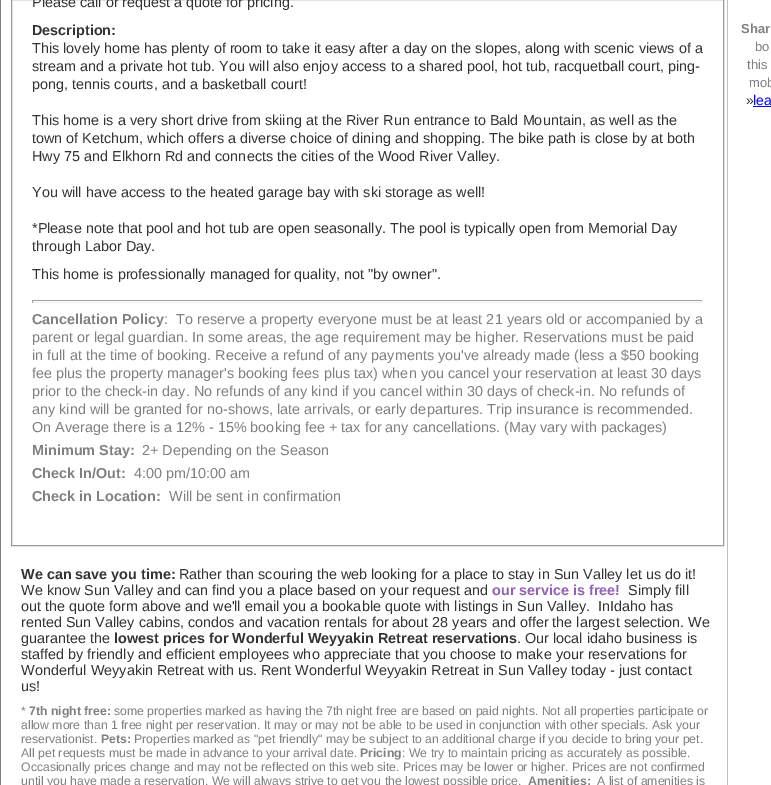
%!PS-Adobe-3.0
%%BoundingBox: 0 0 771 785
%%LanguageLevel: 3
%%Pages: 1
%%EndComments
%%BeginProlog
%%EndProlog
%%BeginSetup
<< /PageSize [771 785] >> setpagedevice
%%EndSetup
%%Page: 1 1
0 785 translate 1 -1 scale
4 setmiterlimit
1 setgray
0 0 771 785 rectfill
0.502 setgray
0 0 1 785 rectfill
0.753 setgray
727 0 1 785 rectfill
0.6 setgray
11.5 -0.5 712 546 rectstroke
0.624 setgray
32 300 671 1 rectfill
0.933 setgray
702 300 1 3 rectfill
32 302 671 1 rectfill
0.624 setgray
32 300 1 3 rectfill
0 0 1 setrgbcolor
753 106 18 1 rectfill
/LiberationSans-Regular [14.4 0 0 -14.4 0 0] selectfont
0.2 setgray
32 7 moveto (Please call or request a quote for pricing.) show
/LiberationSans-Bold [14.4 0 0 -14.4 0 0] selectfont
32 35 moveto (Description:) show
/LiberationSans-Regular [14.4 0 0 -14.4 0 0] selectfont
32 53 moveto (This lovely home has plenty of room to take it easy after a day on the slopes, along with scenic views of a) show
32 71 moveto (stream and a private hot tub. You will also enjoy access to a shared pool, hot tub, racquetball court, ping-) show
32 89 moveto (pong, tennis courts, and a basketball court!) show
32 125 moveto (This home is a very short drive from skiing at the River Run entrance to Bald Mountain, as well as the) show
32 143 moveto (town of Ketchum, which offers a diverse choice of dining and shopping. The bike path is close by at both) show
32 161 moveto (Hwy 75 and Elkhorn Rd and connects the cities of the Wood River Valley.) show
32 197 moveto (You will have access to the heated garage bay with ski storage as well!) show
32 233 moveto (*Please note that pool and hot tub are open seasonally. The pool is typically open from Memorial Day) show
32 251 moveto (through Labor Day.) show
32 279 moveto (This home is professionally managed for quality, not "by owner".) show
/LiberationSans-Bold [14.4 0 0 -14.4 0 0] selectfont
0.502 setgray
32 324 moveto (Cancellation Policy) show
/LiberationSans-Regular [14.4 0 0 -14.4 0 0] selectfont
164 324 moveto (:  To reserve a property everyone must be at least 21 years old or accompanied by a) show
32 342 moveto (parent or legal guardian. In some areas, the age requirement may be higher. Reservations must be paid) show
32 360 moveto (in full at the time of booking. Receive a refund of any payments you've already made \(less a $50 booking) show
32 378 moveto (fee plus the property manager's booking fees plus tax\) when you cancel your reservation at least 30 days) show
32 396 moveto (prior to the check-in day. No refunds of any kind if you cancel within 30 days of check-in. No refunds of) show
32 414 moveto (any kind will be granted for no-shows, late arrivals, or early departures. Trip insurance is recommended.) show
32 432 moveto (On Average there is a 12% - 15% booking fee + tax for any cancellations. \(May vary with packages\)) show
/LiberationSans-Bold [14.4 0 0 -14.4 0 0] selectfont
32 455 moveto (Minimum Stay:) show
/LiberationSans-Regular [14.4 0 0 -14.4 0 0] selectfont
142 455 moveto (2+ Depending on the Season) show
/LiberationSans-Bold [14.4 0 0 -14.4 0 0] selectfont
32 478 moveto (Check In/Out:) show
/LiberationSans-Regular [14.4 0 0 -14.4 0 0] selectfont
134 478 moveto (4:00 pm/10:00 am) show
/LiberationSans-Bold [14.4 0 0 -14.4 0 0] selectfont
32 501 moveto (Check in Location:) show
/LiberationSans-Regular [14.4 0 0 -14.4 0 0] selectfont
169 501 moveto (Will be sent in confirmation) show
/LiberationSans-Bold [14.4 0 0 -14.4 0 0] selectfont
0.2 setgray
21 579 moveto (We can save you time:) show
/LiberationSans-Regular [14.4 0 0 -14.4 0 0] selectfont
179 579 moveto (Rather than scouring the web looking for a place to stay in Sun Valley let us do it!) show
21 595 moveto (We know Sun Valley and can find you a place based on your request and) show
/LiberationSans-Bold [14.4 0 0 -14.4 0 0] selectfont
0.576 0.38 0.706 setrgbcolor
492 595 moveto (our service is free!) show
/LiberationSans-Regular [14.4 0 0 -14.4 0 0] selectfont
0.2 setgray
628 595 moveto (Simply fill) show
21 611 moveto (out the quote form above and we'll email you a bookable quote with listings) show
502 611 moveto (in Sun Valley.  InIdaho has) show
21 627 moveto (rented Sun Valley cabins, condos and vacation rentals for about 28 years and offer the largest selection. We) show
21 643 moveto (guarantee the) show
/LiberationSans-Bold [14.4 0 0 -14.4 0 0] selectfont
114 643 moveto (lowest prices for Wonderful Weyyakin Retreat reservations) show
/LiberationSans-Regular [14.4 0 0 -14.4 0 0] selectfont
517 643 moveto (. Our local idaho business is) show
21 659 moveto (staffed by friendly and efficient employees who appreciate that you choose to make your reservations for) show
21 675 moveto (Wonderful Weyyakin Retreat with us. Rent Wonderful Weyyakin Retreat in Sun Valley today - just contact) show
21 691 moveto (us!) show
/LiberationSans-Regular [12.25 0 0 -12.25 0 0] selectfont
0.502 setgray
21 715 moveto (*) show
/LiberationSans-Bold [12.25 0 0 -12.25 0 0] selectfont
29 715 moveto (7th night free:) show
/LiberationSans-Regular [12.25 0 0 -12.25 0 0] selectfont
114 715 moveto (some properties marked as having the 7th night free are based on paid nights. Not all properties participate or) show
21 729 moveto (allow more than 1 free night per reservation. It may or may not be able to be used in conjunction with other specials. Ask your) show
21 743 moveto (reservationist.) show
/LiberationSans-Bold [12.25 0 0 -12.25 0 0] selectfont
101 743 moveto (Pets:) show
/LiberationSans-Regular [12.25 0 0 -12.25 0 0] selectfont
134 743 moveto (Properties marked as "pet friendly" may be subject to an additional charge if you decide to bring your pet.) show
21 757 moveto (All pet requests must be made in advance to your arrival date.) show
/LiberationSans-Bold [12.25 0 0 -12.25 0 0] selectfont
360 757 moveto (Pricing) show
/LiberationSans-Regular [12.25 0 0 -12.25 0 0] selectfont
402 757 moveto (: We try to maintain pricing as accurately as possible.) show
21 771 moveto (Occasionally prices change and may not be reflected on this web site. Prices may be lower or higher. Prices are not confirmed) show
21 785 moveto (until you have made a reservation. We will always strive to get you the lowest possible price.) show
/LiberationSans-Bold [12.25 0 0 -12.25 0 0] selectfont
528 785 moveto (Amenities:) show
/LiberationSans-Regular [12.25 0 0 -12.25 0 0] selectfont
597 785 moveto (A list of amenities is) show
/LiberationSans-Bold [13 0 0 -13 0 0] selectfont
741 33 moveto (Shar) show
/LiberationSans-Regular [13 0 0 -13 0 0] selectfont
755 51 moveto (bo) show
747 69 moveto (this) show
749 87 moveto (mob) show
/LiberationSans-Regular [14 0 0 -14 0 0] selectfont
0.2 setgray
746 105 moveto (») show
0 0 1 setrgbcolor
753 105 moveto (lea) show
showpage
%%EOF
